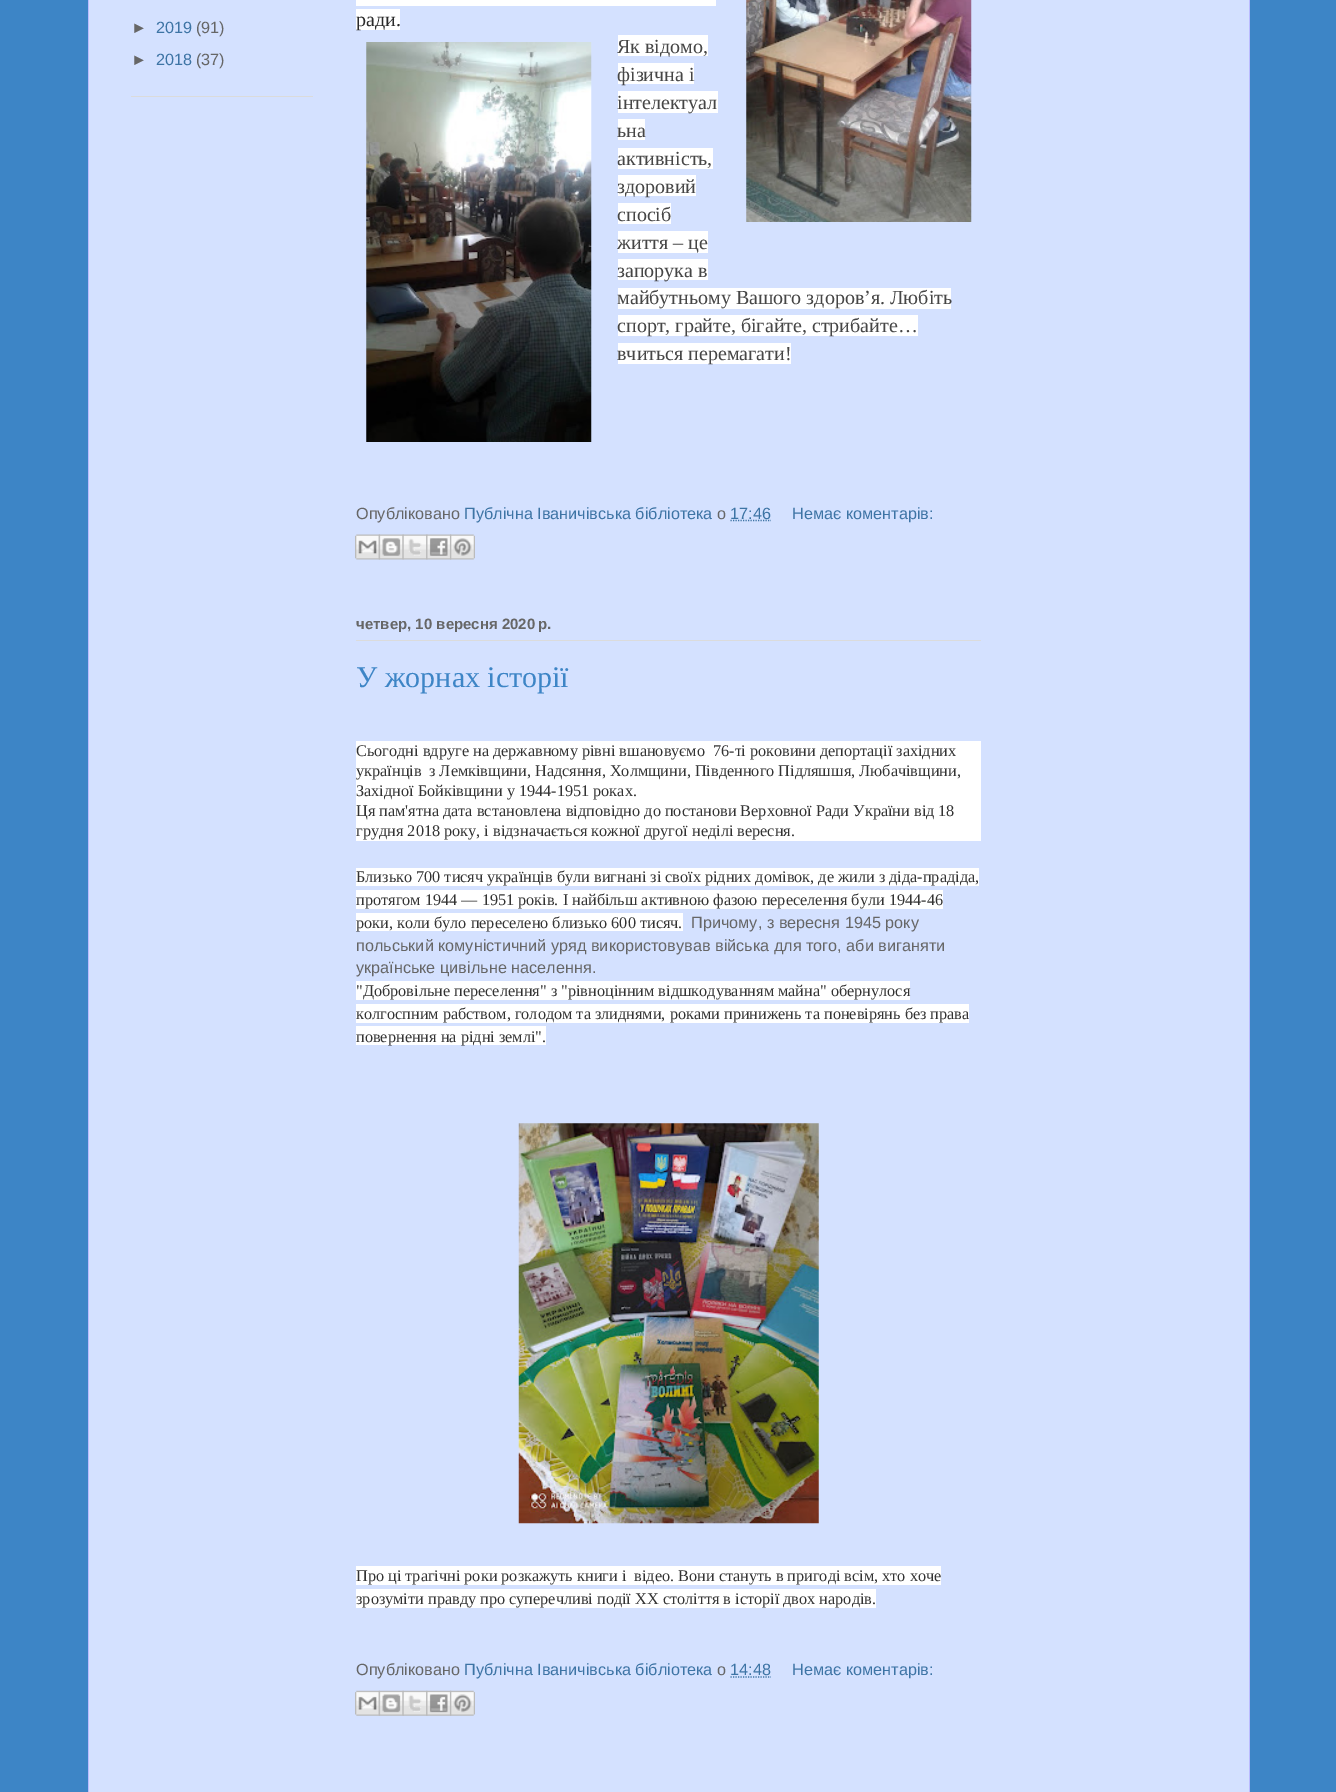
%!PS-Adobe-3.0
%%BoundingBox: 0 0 1336 1792
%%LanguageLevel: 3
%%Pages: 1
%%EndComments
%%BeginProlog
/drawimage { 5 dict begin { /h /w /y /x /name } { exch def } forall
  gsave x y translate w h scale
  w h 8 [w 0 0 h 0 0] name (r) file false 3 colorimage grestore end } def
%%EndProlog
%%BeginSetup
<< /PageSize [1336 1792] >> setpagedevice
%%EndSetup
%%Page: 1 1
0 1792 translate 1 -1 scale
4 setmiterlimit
0.239 0.522 0.776 setrgbcolor
0 0 1336 1792 rectfill
0.831 0.882 1 setrgbcolor
89 0 1160 1792 rectfill
0.733 0.733 1 setrgbcolor
1249 0 1 1792 rectfill
88 0 1 1792 rectfill
0.859 setgray
131 96 182 1 rectfill
1 setgray
356 0 360 6 rectfill
356 9 44 21 rectfill
(images/1.raw) 746 0 226 222 drawimage
(images/2.raw) 366 42 226 400 drawimage
618 35 90 21 rectfill
618 63 76 21 rectfill
618 91 100 22 rectfill
618 119 27 21 rectfill
618 148 95 21 rectfill
618 175 78 21 rectfill
618 203 53 21 rectfill
618 231 90 22 rectfill
618 259 90 21 rectfill
618 288 333 21 rectfill
618 315 300 21 rectfill
618 343 173 21 rectfill
0.239 0.455 0.647 setrgbcolor
1.2 setlinewidth
[1.25 1.25] 0 setdash
newpath 730.5 520.5 moveto 771 520.5 lineto stroke
(images/3.raw) 355 534 25 26 drawimage
(images/4.raw) 378 534 26 26 drawimage
(images/5.raw) 402 534 26 26 drawimage
(images/6.raw) 426 534 26 26 drawimage
(images/7.raw) 450 534 25 26 drawimage
0.859 setgray
356 640 625 1 rectfill
1 setgray
356 741 625 100 rectfill
356 868 623 18 rectfill
356 890 587 19 rectfill
356 913 327 18 rectfill
356 981 554 19 rectfill
356 1004 613 19 rectfill
356 1026 190 19 rectfill
(images/8.raw) 518 1123 301 401 drawimage
356 1566 585 19 rectfill
356 1589 520 19 rectfill
0.239 0.455 0.647 setrgbcolor
newpath 730.5 1677 moveto 771 1677 lineto stroke
(images/9.raw) 355 1690 25 26 drawimage
(images/10.raw) 378 1690 26 26 drawimage
(images/11.raw) 402 1690 26 26 drawimage
(images/12.raw) 426 1690 26 26 drawimage
(images/13.raw) 450 1690 25 26 drawimage
/LiberationSans-Regular [16.25 0 0 -16.25 0 0] selectfont
0.4 setgray
131 33 moveto (►) show
0.239 0.455 0.647 setrgbcolor
156 33 moveto (2019) show
0.4 setgray
196 33 moveto (\(91\)) show
131 65 moveto (►) show
0.239 0.455 0.647 setrgbcolor
156 65 moveto (2018) show
0.4 setgray
196 65 moveto (\(37\)) show
/LiberationSerif-Regular [20 0 0 -20 0 0] selectfont
0.165 setgray
356 26 moveto (ради.) show
0.275 setgray
617 53 moveto (Як відомо,) show
617 81 moveto (фізична і) show
617 109 moveto (інтелектуал) show
617 137 moveto (ьна) show
617 165 moveto (активність,) show
617 193 moveto (здоровий) show
617 221 moveto (спосіб) show
617 249 moveto (життя – це) show
617 277 moveto (запорука в) show
617 304 moveto (майбутньому Вашого здоров’я. Любіть) show
617 332 moveto (спорт, грайте, бігайте, стрибайте…) show
617 360 moveto (вчиться перемагати!) show
/LiberationSans-Regular [16.25 0 0 -16.25 0 0] selectfont
0.4 setgray
356 519 moveto (Опубліковано) show
0.239 0.455 0.647 setrgbcolor
464 519 moveto (Публічна Іваничівська бібліотека) show
0.4 setgray
717 519 moveto (о) show
0.239 0.455 0.647 setrgbcolor
730 519 moveto (17:46) show
792 519 moveto (Немає коментарів:) show
/LiberationSans-Bold [15 0 0 -15 0 0] selectfont
0.4 setgray
356 629 moveto (четвер, 10 вересня 2020 р.) show
/LiberationSerif-Regular [30 0 0 -30 0 0] selectfont
0.239 0.522 0.776 setrgbcolor
356 687 moveto (У жорнах історії) show
/LiberationSerif-Regular [16.25 0 0 -16.25 0 0] selectfont
0.2 setgray
356 756 moveto (Сьогодні вдруге на державному рівні вшановуємо  76-т) show
1 setgray
741 748 1 3 rectfill
0.2 setgray
741 756 moveto (і роковини депортації західних) show
356 776 moveto (українців) show
429 776 moveto (з Лемківщини, Надсяння, Холмщини, Південного Підляшшя, Любачівщини,) show
356 796 moveto (Західної Бойківщини у 1944-1951 роках.) show
356 816 moveto (Ця пам'ятна дата встановлена відповідно до постанови Верховної Ради України від 18) show
356 836 moveto (грудня 2018 року, і відзначається кожної другої неділі вересня.) show
356 882 moveto (Близько 700 тисяч українців були вигнані зі своїх рідних домівок, де жили з діда-прадіда,) show
356 905 moveto (протягом 1944 — 1951 років. І найбільш активною фазою переселення були 1944-46) show
356 928 moveto (роки, коли було переселено близько 600 тисяч.) show
/LiberationSans-Regular [16.25 0 0 -16.25 0 0] selectfont
0.4 setgray
691 928 moveto (Причому, з вересня 1945 року) show
356 951 moveto (польський комуністичний уряд використовував війська для того, аби виганяти) show
356 973 moveto (українське цивільне населення.) show
/LiberationSerif-Regular [16.25 0 0 -16.25 0 0] selectfont
0.2 setgray
356 996 moveto ("Добровільне переселення" з "рівноцінним відшкодуванням майна" обернулося) show
356 1019 moveto (колгоспним рабством, голодом та злиднями, роками принижень та поневірянь без права) show
356 1042 moveto (повернення на рідні землі".) show
356 1581 moveto (Про ці трагічні роки розкажуть книги і  відео. Вони стануть в пригоді всім, хто хоче) show
356 1604 moveto (зрозуміти правду про суперечливі події ХХ століття в історії двох народів.) show
/LiberationSans-Regular [16.25 0 0 -16.25 0 0] selectfont
0.4 setgray
356 1675 moveto (Опубліковано) show
0.239 0.455 0.647 setrgbcolor
464 1675 moveto (Публічна Іваничівська бібліотека) show
0.4 setgray
717 1675 moveto (о) show
0.239 0.455 0.647 setrgbcolor
730 1675 moveto (14:48) show
792 1675 moveto (Немає коментарів:) show
showpage
%%EOF
